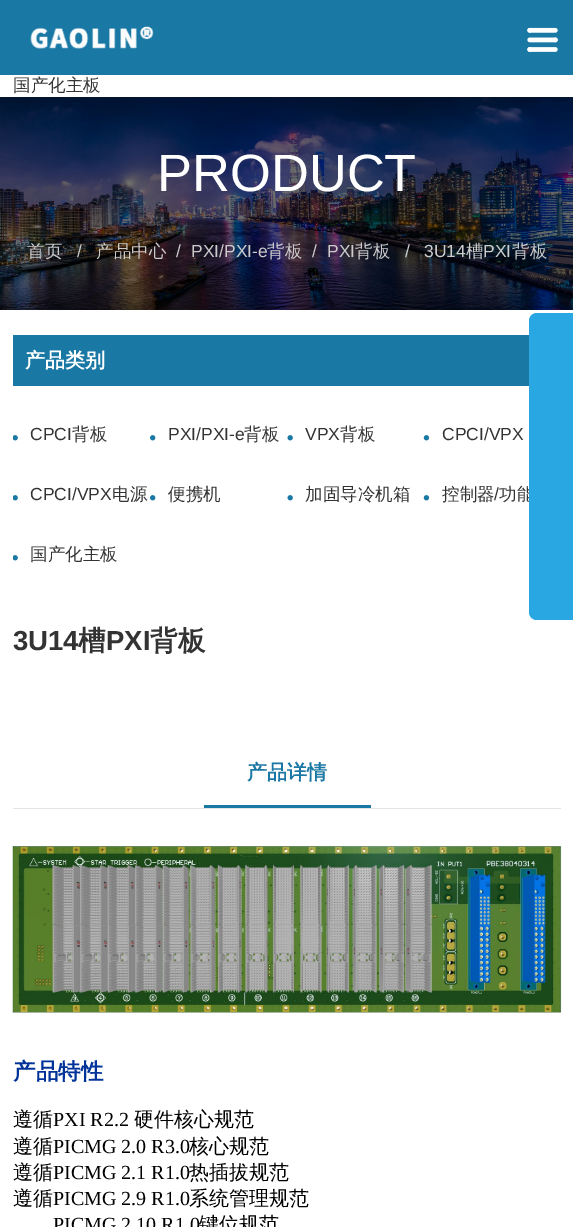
%!PS-Adobe-3.0
%%BoundingBox: 0 0 573 1227
%%LanguageLevel: 3
%%Pages: 1
%%EndComments
%%BeginProlog
/drawimage { 5 dict begin { /h /w /y /x /name } { exch def } forall
  gsave x y translate w h scale
  w h 8 [w 0 0 h 0 0] name (r) file false 3 colorimage grestore end } def
%%EndProlog
%%BeginSetup
<< /PageSize [573 1227] >> setpagedevice
%%EndSetup
%%Page: 1 1
0 1227 translate 1 -1 scale
4 setmiterlimit
1 setgray
0 0 573 1227 rectfill
0.102 0.471 0.647 setrgbcolor
0 0 573 75 rectfill
(images/1.raw) 30 26 124 23 drawimage
(images/2.raw) 527 27 31 25 drawimage
(images/3.raw) 0 97 573 213 drawimage
13 335 516 51 rectfill
(images/4.raw) 13 435 5 6 drawimage
(images/5.raw) 150 435 6 6 drawimage
(images/6.raw) 287 435 6 6 drawimage
(images/7.raw) 423 435 7 6 drawimage
(images/4.raw) 13 495 5 6 drawimage
(images/5.raw) 150 495 6 6 drawimage
(images/6.raw) 287 495 6 6 drawimage
(images/7.raw) 423 495 7 6 drawimage
(images/4.raw) 13 555 5 6 drawimage
0.894 setgray
13 808 548 1 rectfill
0.102 0.471 0.647 setrgbcolor
204 805 167 3 rectfill
(images/8.raw) 12 846 550 167 drawimage
/WenQuanYiZenHei-Medium [17.5 0 0 -17.5 0 0] selectfont
0.2 setgray
13 91 moveto (国产化主板) show
/LiberationSans-Regular [52.5 0 0 -52.5 0 0] selectfont
1 setgray
157 191 moveto (PRODUCT) show
/WenQuanYiZenHei-Medium [17.5 0 0 -17.5 0 0] selectfont
0.8 setgray
27 257 moveto (首页) show
/LiberationSans-Regular [17.5 0 0 -17.5 0 0] selectfont
77 257 moveto (/) show
/WenQuanYiZenHei-Medium [17.5 0 0 -17.5 0 0] selectfont
96 257 moveto (产品中心) show
/LiberationSans-Regular [17.5 0 0 -17.5 0 0] selectfont
176 257 moveto (/) show
191 257 moveto (PXI/PXI-e) show
/WenQuanYiZenHei-Medium [17.5 0 0 -17.5 0 0] selectfont
267 257 moveto (背板) show
/LiberationSans-Regular [17.5 0 0 -17.5 0 0] selectfont
312 257 moveto (/) show
327 257 moveto (PXI) show
/WenQuanYiZenHei-Medium [17.5 0 0 -17.5 0 0] selectfont
355 257 moveto (背板) show
/LiberationSans-Regular [17.5 0 0 -17.5 0 0] selectfont
405 257 moveto (/) show
424 257 moveto (3U14) show
/WenQuanYiZenHei-Medium [17.5 0 0 -17.5 0 0] selectfont
466 257 moveto (槽) show
/LiberationSans-Regular [17.5 0 0 -17.5 0 0] selectfont
483 257 moveto (PXI) show
/WenQuanYiZenHei-Medium [17.5 0 0 -17.5 0 0] selectfont
512 257 moveto (背板) show
/WenQuanYiZenHei-Bold [20 0 0 -20 0 0] selectfont
1 setgray
25 367 moveto (产品类别) show
/LiberationSans-Regular [17.5 0 0 -17.5 0 0] selectfont
0.2 setgray
30 440 moveto (CPCI) show
/WenQuanYiZenHei-Medium [17.5 0 0 -17.5 0 0] selectfont
72 440 moveto (背板) show
/LiberationSans-Regular [17.5 0 0 -17.5 0 0] selectfont
168 440 moveto (PXI/PXI-e) show
/WenQuanYiZenHei-Medium [17.5 0 0 -17.5 0 0] selectfont
244 440 moveto (背板) show
/LiberationSans-Regular [17.5 0 0 -17.5 0 0] selectfont
305 440 moveto (VPX) show
/WenQuanYiZenHei-Medium [17.5 0 0 -17.5 0 0] selectfont
340 440 moveto (背板) show
/LiberationSans-Regular [17.5 0 0 -17.5 0 0] selectfont
442 440 moveto (CPCI/VPX) show
30 500 moveto (CPCI/VPX) show
/WenQuanYiZenHei-Medium [17.5 0 0 -17.5 0 0] selectfont
112 500 moveto (电源) show
168 500 moveto (便携机) show
305 500 moveto (加固导冷机箱) show
442 500 moveto (控制器) show
/LiberationSans-Regular [17.5 0 0 -17.5 0 0] selectfont
494 500 moveto (/) show
/WenQuanYiZenHei-Medium [17.5 0 0 -17.5 0 0] selectfont
499 500 moveto (功能) show
30 560 moveto (国产化主板) show
/LiberationSans-Bold [27.5 0 0 -27.5 0 0] selectfont
13 650 moveto (3U14) show
/WenQuanYiZenHei-Bold [27.5 0 0 -27.5 0 0] selectfont
78 650 moveto (槽) show
/LiberationSans-Bold [27.5 0 0 -27.5 0 0] selectfont
106 650 moveto (PXI) show
/WenQuanYiZenHei-Bold [27.5 0 0 -27.5 0 0] selectfont
150 650 moveto (背板) show
/WenQuanYiZenHei-Bold [20 0 0 -20 0 0] selectfont
0.102 0.471 0.647 setrgbcolor
247 779 moveto (产品详情) show
/WenQuanYiZenHei-Bold [22.5 0 0 -22.5 0 0] selectfont
0 0.2 0.6 setrgbcolor
13 1079 moveto (产品特性) show
/WenQuanYiZenHei-Medium [20 0 0 -20 0 0] selectfont
0 setgray
13 1126 moveto (遵循) show
/LiberationSerif-Regular [20 0 0 -20 0 0] selectfont
53 1126 moveto (PXI R2.2) show
/WenQuanYiZenHei-Medium [20 0 0 -20 0 0] selectfont
134 1126 moveto (硬件核心规范) show
13 1153 moveto (遵循) show
/LiberationSerif-Regular [20 0 0 -20 0 0] selectfont
53 1153 moveto (PICMG 2.0 R3.0) show
/WenQuanYiZenHei-Medium [20 0 0 -20 0 0] selectfont
189 1153 moveto (核心规范) show
13 1179 moveto (遵循) show
/LiberationSerif-Regular [20 0 0 -20 0 0] selectfont
53 1179 moveto (PICMG 2.1 R1.0) show
/WenQuanYiZenHei-Medium [20 0 0 -20 0 0] selectfont
189 1179 moveto (热插拔规范) show
13 1205 moveto (遵循) show
/LiberationSerif-Regular [20 0 0 -20 0 0] selectfont
53 1205 moveto (PICMG 2.9 R1.0) show
/WenQuanYiZenHei-Medium [20 0 0 -20 0 0] selectfont
189 1205 moveto (系统管理规范) show
/LiberationSerif-Regular [20 0 0 -20 0 0] selectfont
53 1231 moveto (PICMG 2.10 R1.0) show
/WenQuanYiZenHei-Medium [20 0 0 -20 0 0] selectfont
199 1231 moveto (键位规范) show
0.161 0.655 0.886 setrgbcolor
newpath 537 313 moveto 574 313 lineto 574 620 lineto 537 620 lineto 532.5 620 529 616.5 529 612 curveto 529 321 lineto 529 316.5 532.5 313 537 313 curveto closepath fill
showpage
%%EOF
